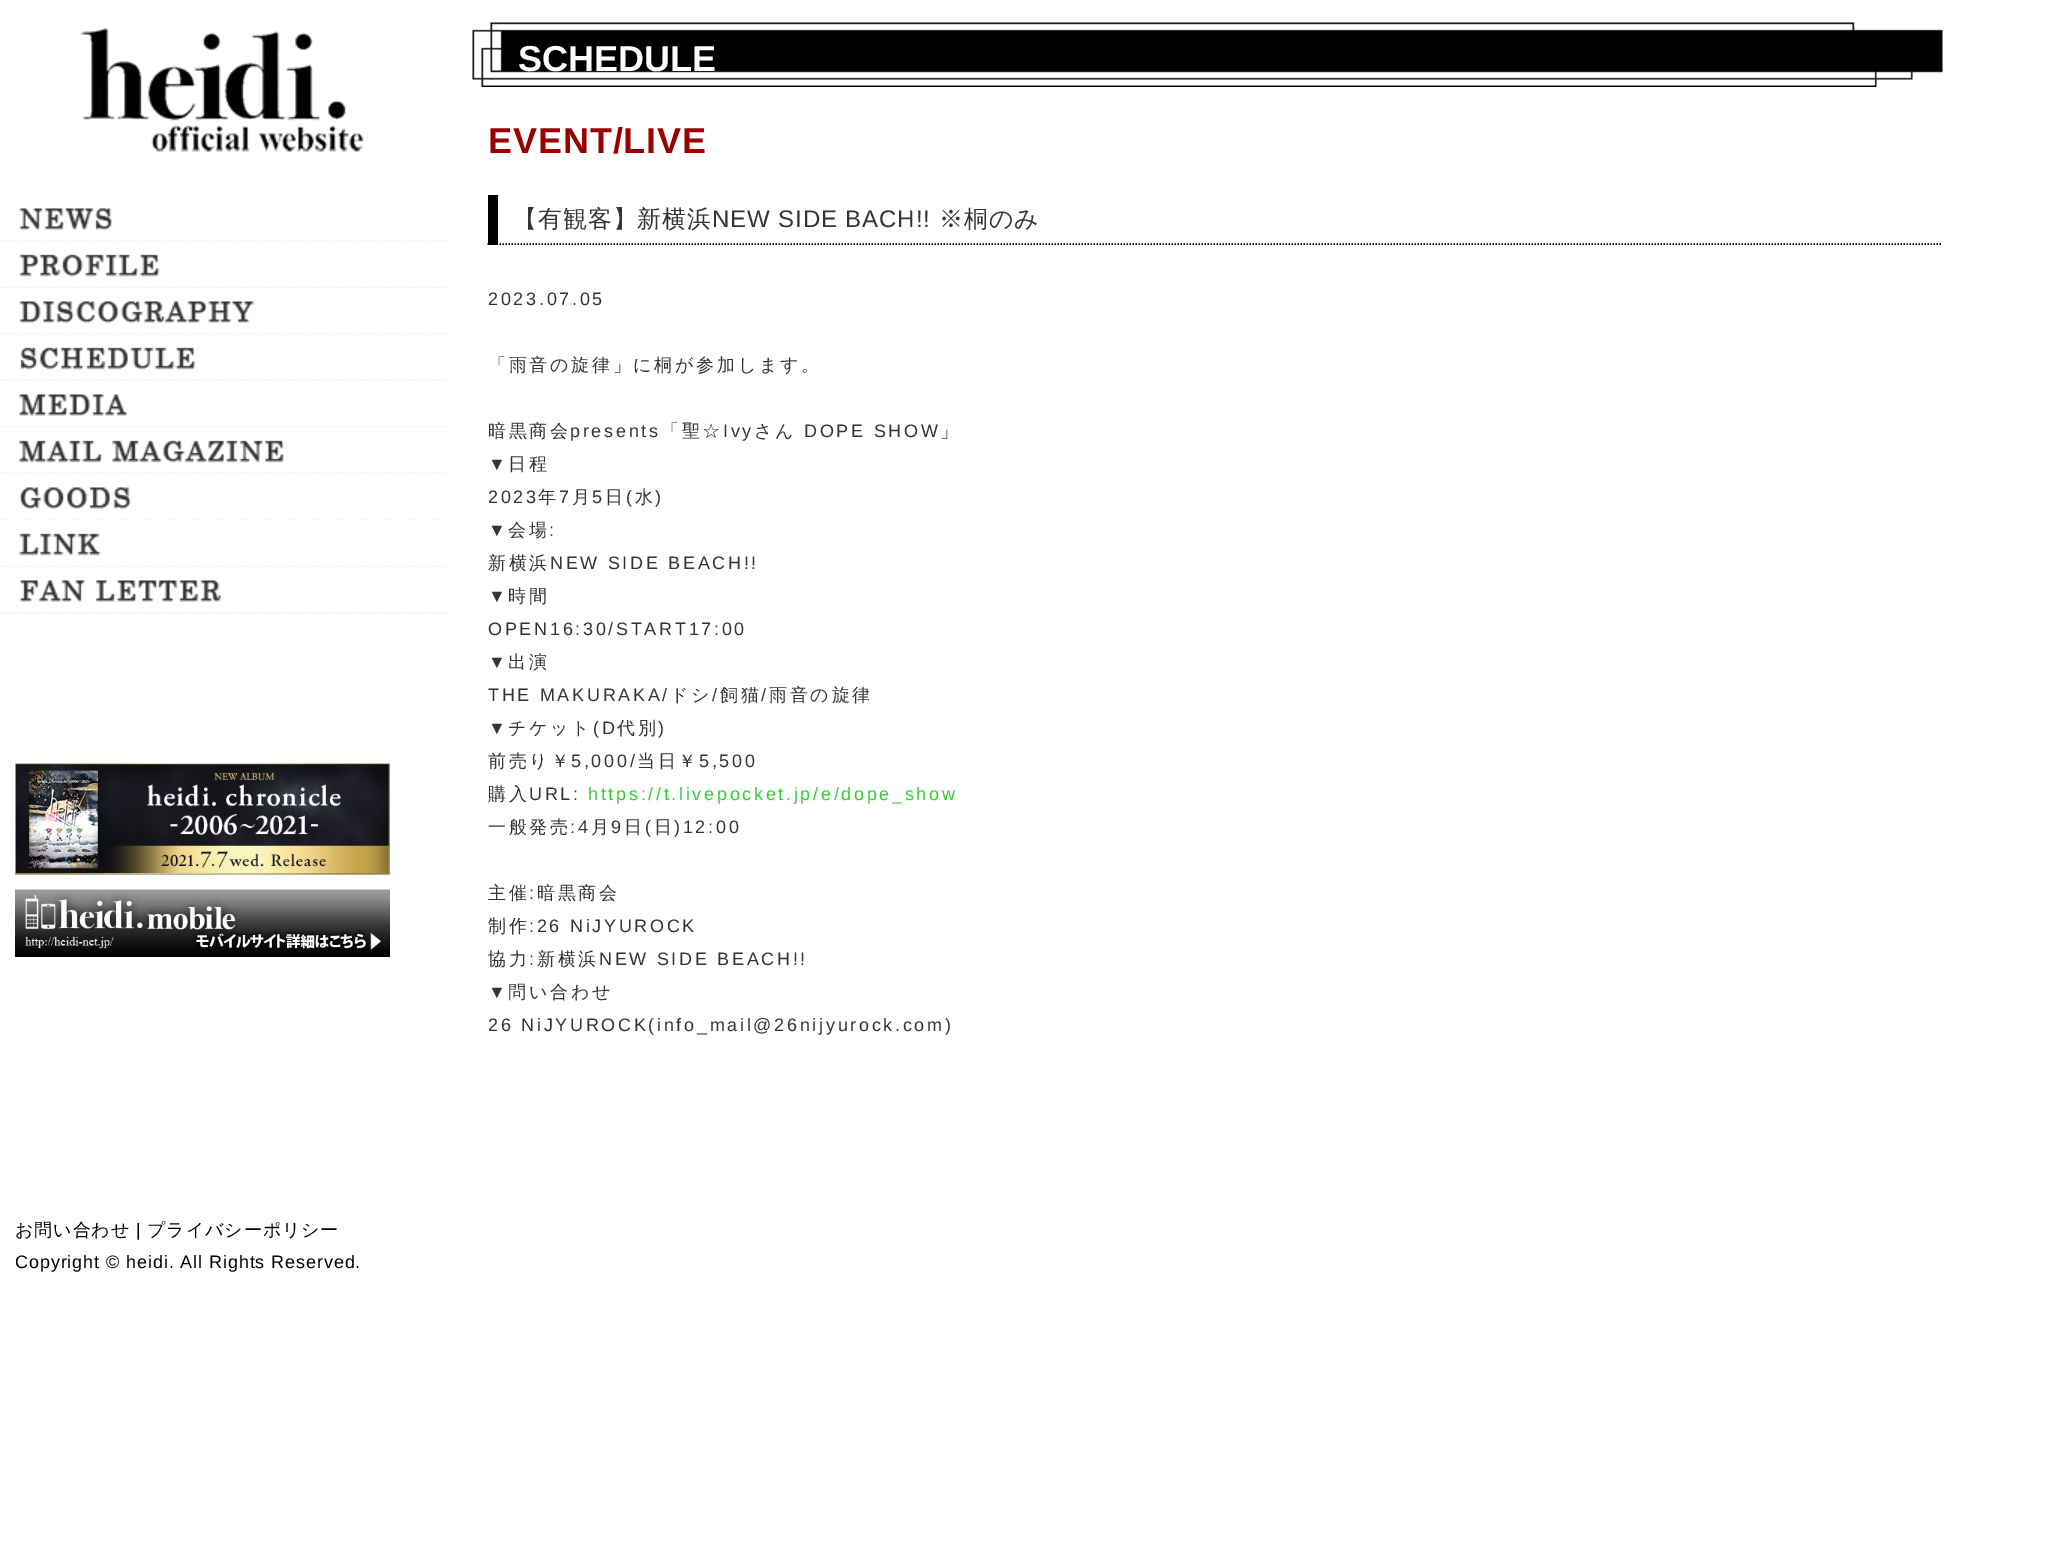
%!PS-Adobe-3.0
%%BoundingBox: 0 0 2069 1551
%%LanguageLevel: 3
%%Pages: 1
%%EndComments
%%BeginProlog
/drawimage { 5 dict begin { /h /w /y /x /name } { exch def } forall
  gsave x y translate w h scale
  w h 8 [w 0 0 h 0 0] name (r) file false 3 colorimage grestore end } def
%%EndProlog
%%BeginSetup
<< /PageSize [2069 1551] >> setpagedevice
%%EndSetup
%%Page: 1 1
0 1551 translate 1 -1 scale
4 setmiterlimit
1 setgray
0 0 2069 1551 rectfill
(images/1.raw) 80 28 284 124 drawimage
0.937 setgray
1.5 setlinewidth
[1.5 1.5] 0 setdash
newpath 0 241 moveto 450 241 lineto stroke
(images/2.raw) 19 208 94 22 drawimage
newpath 0 287 moveto 450 287 lineto stroke
(images/3.raw) 0 241 448 46 drawimage
newpath 0 334 moveto 450 334 lineto stroke
(images/4.raw) 19 301 235 22 drawimage
newpath 0 380 moveto 450 380 lineto stroke
(images/5.raw) 0 334 448 46 drawimage
newpath 0 427 moveto 450 427 lineto stroke
(images/6.raw) 19 394 109 22 drawimage
newpath 0 473 moveto 450 473 lineto stroke
(images/7.raw) 0 427 448 46 drawimage
newpath 0 520 moveto 450 520 lineto stroke
(images/8.raw) 19 487 112 22 drawimage
newpath 0 566 moveto 450 566 lineto stroke
(images/9.raw) 0 520 448 46 drawimage
newpath 0 613 moveto 450 613 lineto stroke
(images/10.raw) 19 580 202 22 drawimage
(images/11.raw) 15 763 375 112 drawimage
(images/12.raw) 15 889 375 68 drawimage
(images/13.raw) 472 22 1471 65 drawimage
0 setgray
newpath 487.5 244 moveto 1942.5 244 lineto stroke
488 195 10 50 rectfill
/LiberationSans-Bold [36 0 0 -36 0 0] selectfont
1 setgray
518 71 moveto (SCHEDULE) show
0.6 0 0 setrgbcolor
488 153 moveto 0.9 0 (EVENT/LIVE) ashow
/WenQuanYiZenHei-Medium [24 0 0 -24 0 0] selectfont
0.204 setgray
513 227 moveto 0.9 0 (【有観客】新横浜) ashow
/LiberationSans-Regular [24 0 0 -24 0 0] selectfont
712 227 moveto 0.9 0 (NEW SIDE BACH!!) ashow
/WenQuanYiZenHei-Medium [24 0 0 -24 0 0] selectfont
939 227 moveto 0.9 0 (※桐のみ) ashow
/LiberationSans-Regular [18 0 0 -18 0 0] selectfont
488 305 moveto 2.7 0 (2023.07.05) ashow
/WenQuanYiZenHei-Medium [18 0 0 -18 0 0] selectfont
488 371 moveto 2.7 0 (「雨音の旋律」に桐が参加します。) ashow
488 437 moveto 2.7 0 (暗黒商会) ashow
/LiberationSans-Regular [18 0 0 -18 0 0] selectfont
570 437 moveto 2.7 0 (presents) ashow
/WenQuanYiZenHei-Medium [18 0 0 -18 0 0] selectfont
661 437 moveto 2.7 0 (「聖☆) ashow
/LiberationSans-Regular [18 0 0 -18 0 0] selectfont
723 437 moveto 2.7 0 (Ivy) ashow
/WenQuanYiZenHei-Medium [18 0 0 -18 0 0] selectfont
754 437 moveto 2.7 0 (さん) ashow
/LiberationSans-Regular [18 0 0 -18 0 0] selectfont
804 437 moveto 2.7 0 (DOPE SHOW) ashow
/WenQuanYiZenHei-Medium [18 0 0 -18 0 0] selectfont
940 437 moveto 2.7 0 (」) ashow
/LiberationSans-Regular [18 0 0 -18 0 0] selectfont
488 470 moveto 2.7 0 (▼) ashow
/WenQuanYiZenHei-Medium [18 0 0 -18 0 0] selectfont
508 470 moveto 2.7 0 (日程) ashow
/LiberationSans-Regular [18 0 0 -18 0 0] selectfont
488 503 moveto 2.7 0 (2023) ashow
/WenQuanYiZenHei-Medium [18 0 0 -18 0 0] selectfont
538 503 moveto 2.7 0 (年) ashow
/LiberationSans-Regular [18 0 0 -18 0 0] selectfont
559 503 moveto 2.7 0 (7) ashow
/WenQuanYiZenHei-Medium [18 0 0 -18 0 0] selectfont
572 503 moveto 2.7 0 (月) ashow
/LiberationSans-Regular [18 0 0 -18 0 0] selectfont
592 503 moveto 2.7 0 (5) ashow
/WenQuanYiZenHei-Medium [18 0 0 -18 0 0] selectfont
605 503 moveto 2.7 0 (日) ashow
/LiberationSans-Regular [18 0 0 -18 0 0] selectfont
626 503 moveto 2.7 0 (\() ashow
/WenQuanYiZenHei-Medium [18 0 0 -18 0 0] selectfont
635 503 moveto 2.7 0 (水) ashow
/LiberationSans-Regular [18 0 0 -18 0 0] selectfont
655 503 moveto 2.7 0 (\)) ashow
488 536 moveto 2.7 0 (▼) ashow
/WenQuanYiZenHei-Medium [18 0 0 -18 0 0] selectfont
508 536 moveto 2.7 0 (会場) ashow
/LiberationSans-Regular [18 0 0 -18 0 0] selectfont
549 536 moveto 2.7 0 (:) ashow
/WenQuanYiZenHei-Medium [18 0 0 -18 0 0] selectfont
488 569 moveto 2.7 0 (新横浜) ashow
/LiberationSans-Regular [18 0 0 -18 0 0] selectfont
550 569 moveto 2.7 0 (NEW SIDE BEACH!!) ashow
488 602 moveto 2.7 0 (▼) ashow
/WenQuanYiZenHei-Medium [18 0 0 -18 0 0] selectfont
508 602 moveto 2.7 0 (時間) ashow
/LiberationSans-Regular [18 0 0 -18 0 0] selectfont
488 635 moveto 2.7 0 (OPEN16:30/START17:00) ashow
488 668 moveto 2.7 0 (▼) ashow
/WenQuanYiZenHei-Medium [18 0 0 -18 0 0] selectfont
508 668 moveto 2.7 0 (出演) ashow
/LiberationSans-Regular [18 0 0 -18 0 0] selectfont
488 701 moveto 2.7 0 (THE MAKURAKA/) ashow
/WenQuanYiZenHei-Medium [18 0 0 -18 0 0] selectfont
670 701 moveto 2.7 0 (ドシ) ashow
/LiberationSans-Regular [18 0 0 -18 0 0] selectfont
712 701 moveto 2.7 0 (/) ashow
/WenQuanYiZenHei-Medium [18 0 0 -18 0 0] selectfont
720 701 moveto 2.7 0 (飼猫) ashow
/LiberationSans-Regular [18 0 0 -18 0 0] selectfont
761 701 moveto 2.7 0 (/) ashow
/WenQuanYiZenHei-Medium [18 0 0 -18 0 0] selectfont
769 701 moveto 2.7 0 (雨音の旋律) ashow
/LiberationSans-Regular [18 0 0 -18 0 0] selectfont
488 734 moveto 2.7 0 (▼) ashow
/WenQuanYiZenHei-Medium [18 0 0 -18 0 0] selectfont
508 734 moveto 2.7 0 (チケット) ashow
/LiberationSans-Regular [18 0 0 -18 0 0] selectfont
593 734 moveto 2.7 0 (\(D) ashow
/WenQuanYiZenHei-Medium [18 0 0 -18 0 0] selectfont
617 734 moveto 2.7 0 (代別) ashow
/LiberationSans-Regular [18 0 0 -18 0 0] selectfont
658 734 moveto 2.7 0 (\)) ashow
/WenQuanYiZenHei-Medium [18 0 0 -18 0 0] selectfont
488 767 moveto 2.7 0 (前売り￥) ashow
/LiberationSans-Regular [18 0 0 -18 0 0] selectfont
571 767 moveto 2.7 0 (5,000/) ashow
/WenQuanYiZenHei-Medium [18 0 0 -18 0 0] selectfont
637 767 moveto 2.7 0 (当日￥) ashow
/LiberationSans-Regular [18 0 0 -18 0 0] selectfont
699 767 moveto 2.7 0 (5,500) ashow
/WenQuanYiZenHei-Medium [18 0 0 -18 0 0] selectfont
488 800 moveto 2.7 0 (購入) ashow
/LiberationSans-Regular [18 0 0 -18 0 0] selectfont
529 800 moveto 2.7 0 (URL:) ashow
0.2 0.8 0.2 setrgbcolor
588 800 moveto 2.7 0 (https://t.livepocket.jp/e/dope_show) ashow
/WenQuanYiZenHei-Medium [18 0 0 -18 0 0] selectfont
0.204 setgray
488 833 moveto 2.7 0 (一般発売) ashow
/LiberationSans-Regular [18 0 0 -18 0 0] selectfont
570 833 moveto 2.7 0 (:4) ashow
/WenQuanYiZenHei-Medium [18 0 0 -18 0 0] selectfont
591 833 moveto 2.7 0 (月) ashow
/LiberationSans-Regular [18 0 0 -18 0 0] selectfont
611 833 moveto 2.7 0 (9) ashow
/WenQuanYiZenHei-Medium [18 0 0 -18 0 0] selectfont
624 833 moveto 2.7 0 (日) ashow
/LiberationSans-Regular [18 0 0 -18 0 0] selectfont
645 833 moveto 2.7 0 (\() ashow
/WenQuanYiZenHei-Medium [18 0 0 -18 0 0] selectfont
654 833 moveto 2.7 0 (日) ashow
/LiberationSans-Regular [18 0 0 -18 0 0] selectfont
674 833 moveto 2.7 0 (\)12:00) ashow
/WenQuanYiZenHei-Medium [18 0 0 -18 0 0] selectfont
488 899 moveto 2.7 0 (主催) ashow
/LiberationSans-Regular [18 0 0 -18 0 0] selectfont
529 899 moveto 2.7 0 (:) ashow
/WenQuanYiZenHei-Medium [18 0 0 -18 0 0] selectfont
537 899 moveto 2.7 0 (暗黒商会) ashow
488 932 moveto 2.7 0 (制作) ashow
/LiberationSans-Regular [18 0 0 -18 0 0] selectfont
529 932 moveto 2.7 0 (:26 NiJYUROCK) ashow
/WenQuanYiZenHei-Medium [18 0 0 -18 0 0] selectfont
488 965 moveto 2.7 0 (協力) ashow
/LiberationSans-Regular [18 0 0 -18 0 0] selectfont
529 965 moveto 2.7 0 (:) ashow
/WenQuanYiZenHei-Medium [18 0 0 -18 0 0] selectfont
537 965 moveto 2.7 0 (新横浜) ashow
/LiberationSans-Regular [18 0 0 -18 0 0] selectfont
599 965 moveto 2.7 0 (NEW SIDE BEACH!!) ashow
488 998 moveto 2.7 0 (▼) ashow
/WenQuanYiZenHei-Medium [18 0 0 -18 0 0] selectfont
508 998 moveto 2.7 0 (問い合わせ) ashow
/LiberationSans-Regular [18 0 0 -18 0 0] selectfont
488 1031 moveto 2.7 0 (26 NiJYUROCK\(info_mail@26nijyurock.com\)) ashow
/WenQuanYiZenHei-Medium [18 0 0 -18 0 0] selectfont
0 setgray
15 1236 moveto 0.9 0 (お問い合わせ) ashow
/LiberationSans-Regular [18 0 0 -18 0 0] selectfont
136 1236 moveto 0.9 0 (|) ashow
/WenQuanYiZenHei-Medium [18 0 0 -18 0 0] selectfont
147 1236 moveto 0.9 0 (プライバシーポリシー) ashow
/LiberationSans-Regular [18 0 0 -18 0 0] selectfont
15 1268 moveto 0.9 0 (Copyright © heidi. All Rights Reserved.) ashow
showpage
%%EOF
